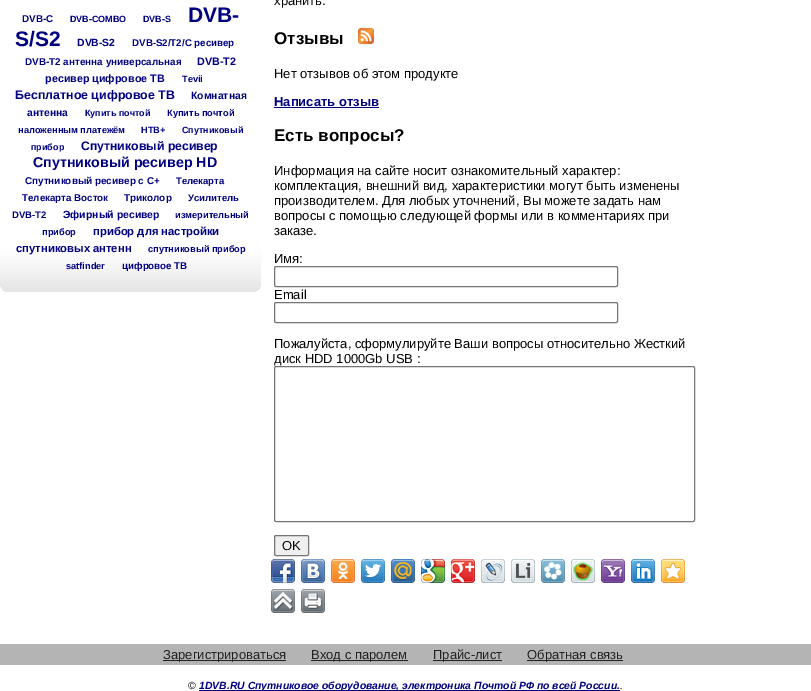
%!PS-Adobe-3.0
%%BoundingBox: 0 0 811 691
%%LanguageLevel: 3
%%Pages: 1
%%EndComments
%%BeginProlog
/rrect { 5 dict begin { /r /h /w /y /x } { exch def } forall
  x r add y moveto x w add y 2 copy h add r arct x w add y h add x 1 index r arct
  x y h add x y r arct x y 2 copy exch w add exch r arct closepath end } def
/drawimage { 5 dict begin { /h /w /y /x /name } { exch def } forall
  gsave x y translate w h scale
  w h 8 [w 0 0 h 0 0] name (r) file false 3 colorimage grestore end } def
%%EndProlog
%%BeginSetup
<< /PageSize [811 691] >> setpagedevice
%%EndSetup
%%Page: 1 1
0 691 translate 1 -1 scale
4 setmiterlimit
1 setgray
0 0 811 691 rectfill
(images/1.raw) 0 243 261 49 drawimage
260 287 1 2 rectfill
0 287 1 2 rectfill
259 289 2 1 rectfill
0 289 2 1 rectfill
258 290 3 1 rectfill
0 290 3 1 rectfill
256 291 5 1 rectfill
0 291 5 1 rectfill
(images/2.raw) 358 28 16 16 drawimage
0 0 0.502 setrgbcolor
274 107 105 1 rectfill
0.463 setgray
274.5 266.5 343 20 1.5 rrect stroke
274.5 302.5 343 20 1.5 rrect stroke
274.5 366.5 420 155 1.5 rrect stroke
0.937 setgray
274.5 535.5 34 20 1.5 rrect gsave fill grestore
0.463 setgray
stroke
(images/3.raw) 271 559 24 24 drawimage
(images/4.raw) 301 559 24 24 drawimage
(images/5.raw) 331 559 24 24 drawimage
(images/6.raw) 361 559 24 24 drawimage
(images/7.raw) 391 559 24 24 drawimage
(images/8.raw) 421 559 24 24 drawimage
(images/9.raw) 451 559 24 24 drawimage
(images/10.raw) 481 559 24 24 drawimage
(images/11.raw) 511 559 24 24 drawimage
(images/12.raw) 541 559 24 24 drawimage
(images/13.raw) 571 559 24 24 drawimage
(images/14.raw) 601 559 24 24 drawimage
(images/15.raw) 631 559 24 24 drawimage
(images/16.raw) 661 559 24 24 drawimage
(images/17.raw) 271 589 24 24 drawimage
(images/18.raw) 301 589 24 24 drawimage
0.706 setgray
0 644 811 21 rectfill
0.133 setgray
163 660 123 1 rectfill
311 660 97 1 rectfill
433 660 69 1 rectfill
527 660 96 1 rectfill
0 0 0.502 setrgbcolor
199 690 421 1 rectfill
/LiberationSans-Bold [9.9 0 0 -9.9 0 0] selectfont
22 22 moveto (DVB-C) show
/LiberationSans-Bold [9 0 0 -9 0 0] selectfont
70 22 moveto (DVB-COMBO) show
143 22 moveto (DVB-S) show
/LiberationSans-Bold [21 0 0 -21 0 0] selectfont
188 22 moveto (DVB-) show
15 46 moveto (S/S2) show
/LiberationSans-Bold [10.4 0 0 -10.4 0 0] selectfont
77 46 moveto (DVB-S2) show
/LiberationSans-Bold [9.75 0 0 -9.75 0 0] selectfont
132 46 moveto (DVB-S2/T2/С ресивер) show
/LiberationSans-Bold [9.9 0 0 -9.9 0 0] selectfont
25 65 moveto (DVB-T2 антенна универсальная) show
/LiberationSans-Bold [10.75 0 0 -10.75 0 0] selectfont
197 65 moveto (DVB-T2) show
45 82 moveto (ресивер цифровое ТВ) show
/LiberationSans-Bold [9.25 0 0 -9.25 0 0] selectfont
182 82 moveto (Tevii) show
/LiberationSans-Bold [12.4 0 0 -12.4 0 0] selectfont
15 99 moveto (Бесплатное цифровое ТВ) show
/LiberationSans-Bold [10.4 0 0 -10.4 0 0] selectfont
191 99 moveto (Комнатная) show
27 116 moveto (антенна) show
/LiberationSans-Bold [9 0 0 -9 0 0] selectfont
85 116 moveto (Купить почтой) show
/LiberationSans-Bold [9.25 0 0 -9.25 0 0] selectfont
167 116 moveto (Купить почтой) show
18 133 moveto (наложенным платежём) show
141 133 moveto (НТВ+) show
/LiberationSans-Bold [9 0 0 -9 0 0] selectfont
182 133 moveto (Спутниковый) show
31 150 moveto (прибор) show
/LiberationSans-Bold [12.25 0 0 -12.25 0 0] selectfont
81 150 moveto (Спутниковый ресивер) show
/LiberationSans-Bold [14.25 0 0 -14.25 0 0] selectfont
33 167 moveto (Спутниковый ресивер HD) show
/LiberationSans-Bold [9.9 0 0 -9.9 0 0] selectfont
25 184 moveto (Спутниковый ресивер с C+) show
/LiberationSans-Bold [9.5 0 0 -9.5 0 0] selectfont
176 184 moveto (Телекарта) show
/LiberationSans-Bold [9.75 0 0 -9.75 0 0] selectfont
22 201 moveto (Телекарта Восток) show
/LiberationSans-Bold [9.9 0 0 -9.9 0 0] selectfont
124 201 moveto (Триколор) show
/LiberationSans-Bold [9.5 0 0 -9.5 0 0] selectfont
188 201 moveto (Усилитель) show
12 218 moveto (DVB-T2) show
/LiberationSans-Bold [10.4 0 0 -10.4 0 0] selectfont
63 218 moveto (Эфирный ресивер) show
/LiberationSans-Bold [9.25 0 0 -9.25 0 0] selectfont
175 218 moveto (измерительный) show
42 235 moveto (прибор) show
/LiberationSans-Bold [11.25 0 0 -11.25 0 0] selectfont
93 235 moveto (прибор для настройки) show
16 252 moveto (спутниковых антенн) show
/LiberationSans-Bold [9.25 0 0 -9.25 0 0] selectfont
148 252 moveto (спутниковый прибор) show
66 269 moveto (satfinder) show
/LiberationSans-Bold [9.75 0 0 -9.75 0 0] selectfont
122 269 moveto (цифровое ТВ) show
/LiberationSans-Regular [13 0 0 -13 0 0] selectfont
0 setgray
274 5 moveto (хранить.) show
/LiberationSans-Bold [17 0 0 -17 0 0] selectfont
274 44 moveto (Отзывы) show
/LiberationSans-Regular [13 0 0 -13 0 0] selectfont
274 78 moveto (Нет отзывов об этом продукте) show
/LiberationSans-Bold [13 0 0 -13 0 0] selectfont
0 0 0.502 setrgbcolor
274 106 moveto (Написать отзыв) show
/LiberationSans-Bold [17 0 0 -17 0 0] selectfont
0 setgray
274 141 moveto (Есть вопросы?) show
/LiberationSans-Regular [13 0 0 -13 0 0] selectfont
274 175 moveto (Информация на сайте носит ознакомительный характер:) show
274 190 moveto (комплектация, внешний вид, характеристики могут быть изменены) show
274 205 moveto (производителем. Для любых уточнений, Вы можете задать нам) show
274 220 moveto (вопросы с помощью следующей формы или в комментариях при) show
274 235 moveto (заказе.) show
274 263 moveto (Имя:) show
274 299 moveto (Email) show
274 348 moveto (Пожалуйста, сформулируйте Ваши вопросы относительно Жесткий) show
274 363 moveto (диск HDD 1000Gb USB :) show
282 550 moveto (OK) show
0.133 setgray
163 659 moveto (Зарегистрироваться) show
311 659 moveto (Вход с паролем) show
433 659 moveto (Прайс-лист) show
527 659 moveto (Обратная связь) show
/LiberationSans-Italic [10.4 0 0 -10.4 0 0] selectfont
0 setgray
188 689 moveto (©) show
/LiberationSans-BoldItalic [10.4 0 0 -10.4 0 0] selectfont
0 0 0.502 setrgbcolor
199 689 moveto (1DVB.RU Cпутниковое оборудование, электроника Почтой РФ по всей России.) show
/LiberationSans-Italic [10.4 0 0 -10.4 0 0] selectfont
0 setgray
620 689 moveto (.) show
showpage
%%EOF
